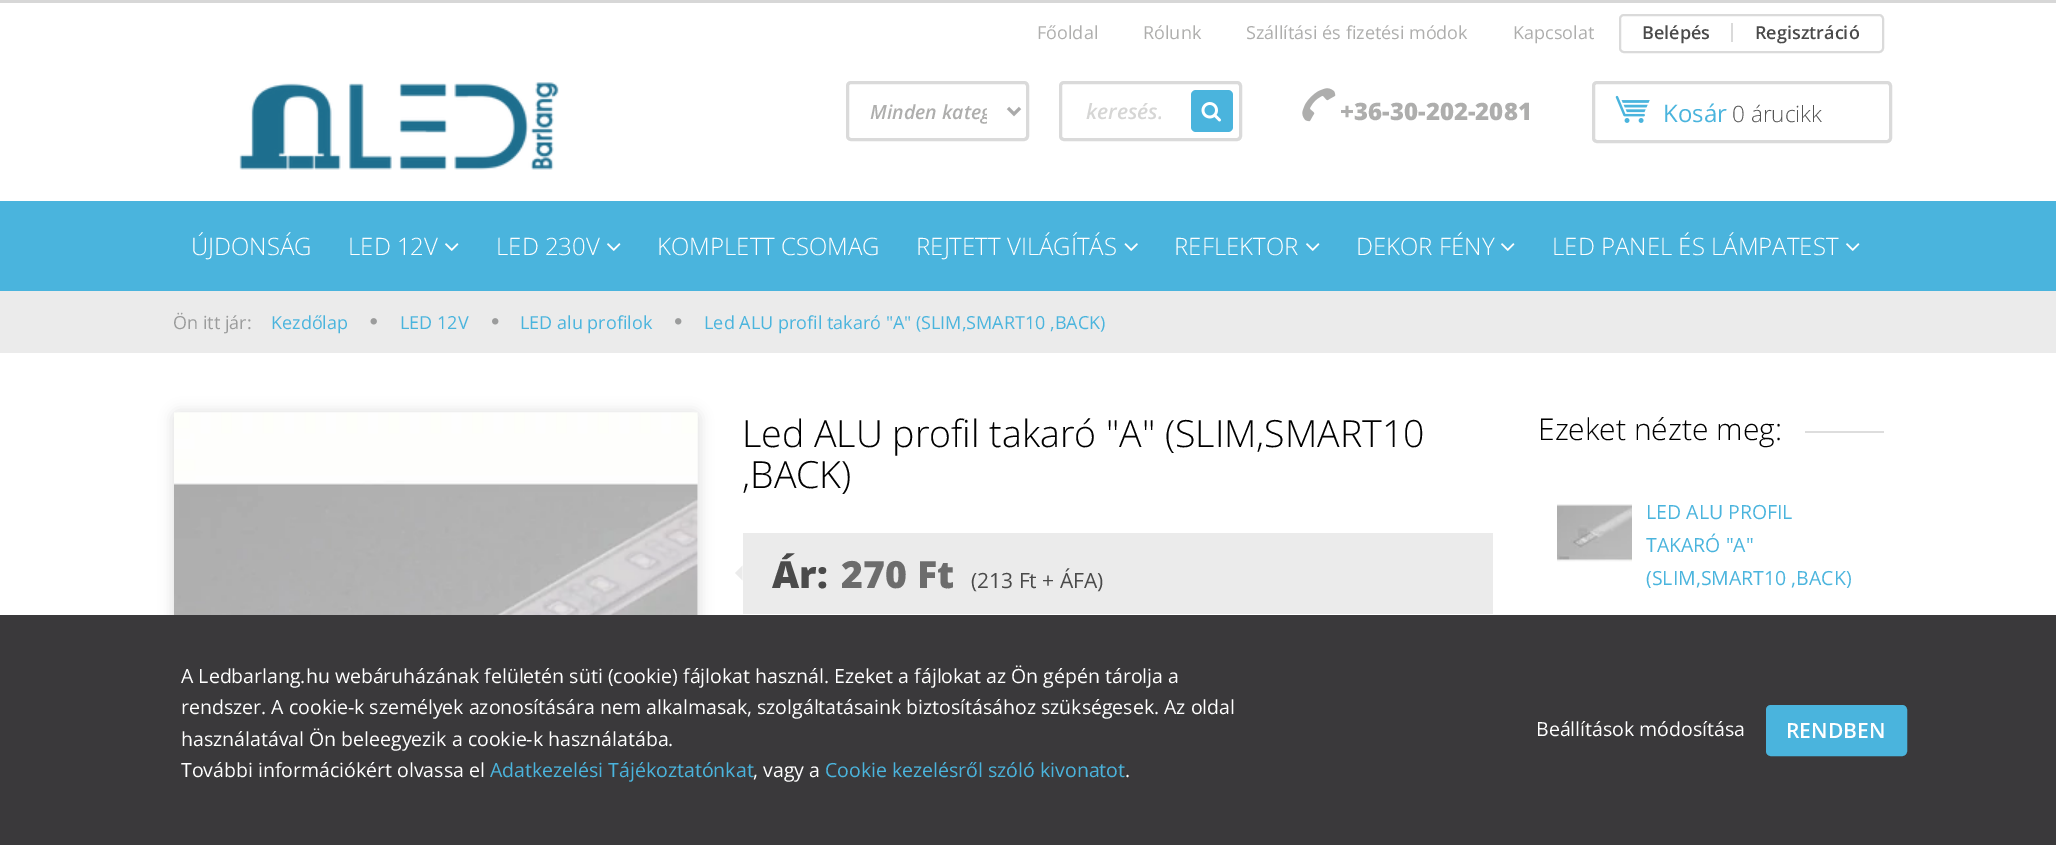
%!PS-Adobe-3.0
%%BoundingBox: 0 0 2056 845
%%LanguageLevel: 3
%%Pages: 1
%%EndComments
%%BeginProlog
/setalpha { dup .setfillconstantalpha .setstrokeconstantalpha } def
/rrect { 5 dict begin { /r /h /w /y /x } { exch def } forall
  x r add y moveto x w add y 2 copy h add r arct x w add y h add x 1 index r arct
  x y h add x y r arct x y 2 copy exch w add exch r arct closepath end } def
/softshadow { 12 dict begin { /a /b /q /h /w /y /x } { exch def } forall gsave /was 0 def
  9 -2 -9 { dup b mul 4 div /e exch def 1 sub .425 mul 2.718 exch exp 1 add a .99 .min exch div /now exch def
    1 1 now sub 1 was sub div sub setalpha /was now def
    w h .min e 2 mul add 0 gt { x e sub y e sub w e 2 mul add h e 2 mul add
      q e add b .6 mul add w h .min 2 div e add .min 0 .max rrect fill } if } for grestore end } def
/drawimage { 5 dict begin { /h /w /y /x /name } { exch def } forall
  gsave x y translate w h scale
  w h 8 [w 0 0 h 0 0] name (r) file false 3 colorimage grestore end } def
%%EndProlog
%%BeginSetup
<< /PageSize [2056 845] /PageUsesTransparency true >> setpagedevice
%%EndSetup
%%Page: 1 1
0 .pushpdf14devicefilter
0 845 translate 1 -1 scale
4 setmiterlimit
1 setgray
0 0 2056 845 rectfill
0.843 setgray
0 0 2056 3 rectfill
0.855 setgray
2 setlinewidth
1620 15 263 37 4 rrect stroke
1731 23 2 19 rectfill
(images/1.raw) 239 82 320 88 drawimage
3 setlinewidth
847.5 82.5 180 57 3.5 rrect stroke
0.667 setgray
newpath 1008 108 moveto 1014 114 lineto 1020 108 lineto stroke
0.855 setgray
1060.5 82.5 180 57 3.5 rrect stroke
0.29 0.706 0.867 setrgbcolor
1191 90 42 42 5 rrect fill
(images/2.raw) 1201 102 20 20 drawimage
(images/3.raw) 1302 88 34 34 drawimage
0.855 setgray
1593.5 82.5 297 59 3.5 rrect stroke
(images/4.raw) 1615 95 35 28 drawimage
0.29 0.706 0.867 setrgbcolor
0 201 2056 90 rectfill
(images/5.raw) 445 243 14 8 drawimage
(images/5.raw) 607 243 14 8 drawimage
(images/6.raw) 1124 243 14 8 drawimage
(images/5.raw) 1306 243 14 8 drawimage
(images/5.raw) 1501 243 14 8 drawimage
(images/5.raw) 1846 243 14 8 drawimage
0.922 setgray
0 291 2056 62 rectfill
(images/7.raw) 370 318 7 7 drawimage
(images/8.raw) 492 318 7 7 drawimage
(images/8.raw) 675 318 7 7 drawimage
0 setgray
171 410 530 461 8 6 0.1 softshadow
(images/9.raw) 174 412 524 203 drawimage
0.922 setgray
743 533 750 81 rectfill
newpath 742.5 565.5 moveto 742.5 580.5 lineto 735 573 lineto closepath fill
0.867 setgray
1805 431 79 2 rectfill
(images/10.raw) 1557 504 75 58 drawimage
0.227 0.224 0.231 setrgbcolor
0 615 2056 230 rectfill
0.29 0.706 0.867 setrgbcolor
1767.5 706.5 138 48 3.5 rrect gsave fill grestore
stroke
/OpenSans-Regular [18 0 0 -18 0 0] selectfont
0.682 0.682 0.678 setrgbcolor
1037 39 moveto (Főoldal) show
1143 39 moveto (Rólunk) show
1246 39 moveto (Szállítási és fizetési módok) show
1513 39 moveto (Kapcsolat) show
/OpenSans-SemiBold [18 0 0 -18 0 0] selectfont
0.29 setgray
1642 39 moveto (Belépés) show
1755 39 moveto (Regisztráció) show
gsave
870 96 117 30 rectclip
/OpenSans-SemiBoldItalic [19.5 0 0 -19.5 0 0] selectfont
0.682 0.682 0.678 setrgbcolor
870 119 moveto (Minden kateg) show
grestore
gsave
1086 96 75 29 rectclip
/OpenSans-SemiBoldItalic [21 0 0 -21 0 0] selectfont
0.839 0.839 0.835 setrgbcolor
1086 119 moveto (keresés.) show
grestore
/OpenSans-ExtraBold [24 0 0 -24 0 0] selectfont
0.682 0.682 0.678 setrgbcolor
1340 120 moveto (+36-30-202-2081) show
/OpenSans-Regular [24 0 0 -24 0 0] selectfont
0.29 0.706 0.867 setrgbcolor
1663 122 moveto (Kosár) show
/OpenSans-Light [22.5 0 0 -22.5 0 0] selectfont
0.333 setgray
1732 122 moveto (0 árucikk) show
/OpenSans-Light [24 0 0 -24 0 0] selectfont
1 setgray
191 255 moveto (ÚJDONSÁG) show
348 255 moveto (LED 12V) show
496 255 moveto (LED 230V) show
657 255 moveto (KOMPLETT CSOMAG) show
916 255 moveto (REJTETT VILÁGÍTÁS) show
1174 255 moveto (REFLEKTOR) show
1356 255 moveto (DEKOR FÉNY) show
1552 255 moveto (LED PANEL ÉS LÁMPATEST) show
/OpenSans-Regular [18 0 0 -18 0 0] selectfont
0.608 0.612 0.612 setrgbcolor
173 329 moveto (Ön itt jár:) show
0.29 0.706 0.867 setrgbcolor
271 329 moveto (Kezdőlap) show
400 329 moveto (LED 12V) show
520 329 moveto (LED alu profilok) show
704 329 moveto (Led ALU profil takaró "A" \(SLIM,SMART10 ,BACK\)) show
/OpenSans-Light [37.5 0 0 -37.5 0 0] selectfont
0 setgray
742 447 moveto (Led ALU profil takaró "A" \(SLIM,SMART10) show
742 488 moveto (,BACK\)) show
/OpenSans-ExtraBold [37.5 0 0 -37.5 0 0] selectfont
0.29 setgray
772 588 moveto (Ár:) show
0.424 setgray
841 588 moveto (270 Ft) show
/OpenSans-Regular [21 0 0 -21 0 0] selectfont
0.29 setgray
971 588 moveto (\(213 Ft + ÁFA\)) show
/OpenSans-Light [30 0 0 -30 0 0] selectfont
0 setgray
1538 440 moveto (Ezeket nézte meg:) show
/OpenSans-Regular [19.5 0 0 -19.5 0 0] selectfont
0.29 0.706 0.867 setrgbcolor
1646 519 moveto (LED ALU PROFIL) show
1646 552 moveto (TAKARÓ "A") show
1646 585 moveto (\(SLIM,SMART10 ,BACK\)) show
1 setgray
181 683 moveto (A Ledbarlang.hu webáruházának felületén süti \(cookie\) fájlokat használ. Ezeket a fájlokat az Ön gépén tárolja a) show
181 714 moveto (rendszer. A cookie-k személyek azonosítására nem alkalmasak, szolgáltatásaink biztosításához szükségesek. Az oldal) show
181 746 moveto (használatával Ön beleegyezik a cookie-k használatába.) show
181 777 moveto (További információkért olvassa el) show
0.29 0.706 0.867 setrgbcolor
490 777 moveto (Adatkezelési Tájékoztatónkat) show
1 setgray
753 777 moveto (, vagy a) show
0.29 0.706 0.867 setrgbcolor
825 777 moveto (Cookie kezelésről szóló kivonatot) show
1 setgray
1125 777 moveto (.) show
1536 736 moveto (Beállítások módosítása) show
/OpenSans-SemiBold [21 0 0 -21 0 0] selectfont
1786 738 moveto (RENDBEN) show
.poppdf14devicefilter showpage
%%EOF
